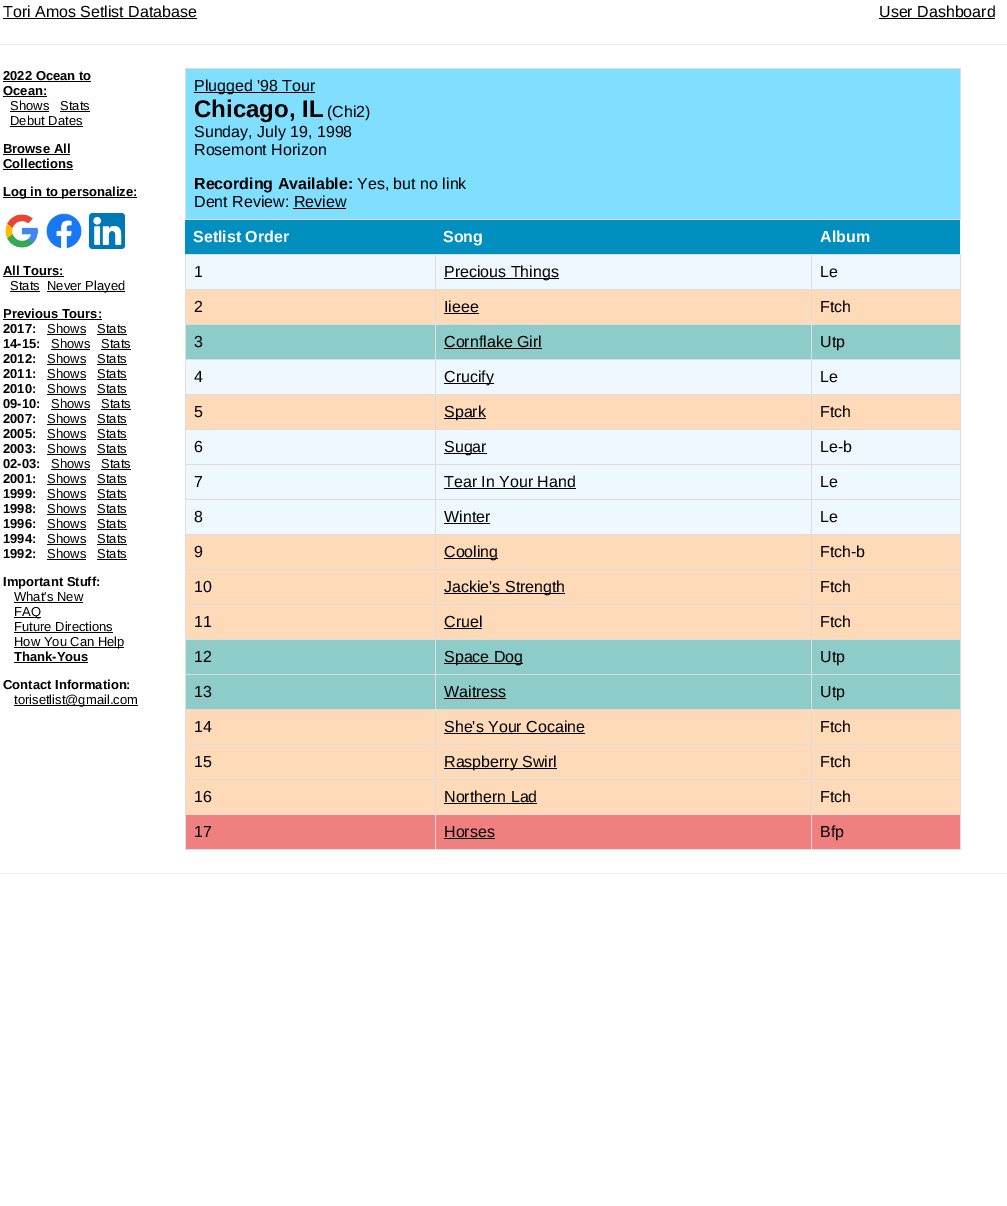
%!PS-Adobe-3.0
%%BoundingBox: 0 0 1007 1206
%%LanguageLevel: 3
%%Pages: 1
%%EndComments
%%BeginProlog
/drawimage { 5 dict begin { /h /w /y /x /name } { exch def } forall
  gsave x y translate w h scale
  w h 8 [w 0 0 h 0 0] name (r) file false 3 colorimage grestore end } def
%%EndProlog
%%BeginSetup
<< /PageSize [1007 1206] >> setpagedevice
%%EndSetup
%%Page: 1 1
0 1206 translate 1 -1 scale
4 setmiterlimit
1 setgray
0 0 1007 1206 rectfill
0 setgray
3 18 194 1 rectfill
879 18 116 1 rectfill
0.933 setgray
0 44 1007 1 rectfill
0 setgray
3 81 88 1 rectfill
3 96 44 1 rectfill
10 111 39 1 rectfill
60 111 30 1 rectfill
10 126 73 1 rectfill
3 154 67 1 rectfill
3 169 70 1 rectfill
3 197 134 1 rectfill
(images/1.raw) 5 214 33 34 drawimage
(images/2.raw) 46 213 36 36 drawimage
(images/3.raw) 89 213 36 36 drawimage
3 276 61 1 rectfill
10 291 30 1 rectfill
47 291 78 1 rectfill
3 319 99 1 rectfill
47 334 39 1 rectfill
97 334 30 1 rectfill
51 349 39 1 rectfill
101 349 30 1 rectfill
47 364 39 1 rectfill
97 364 30 1 rectfill
47 379 39 1 rectfill
97 379 30 1 rectfill
47 394 39 1 rectfill
97 394 30 1 rectfill
51 409 39 1 rectfill
101 409 30 1 rectfill
47 424 39 1 rectfill
97 424 30 1 rectfill
47 439 39 1 rectfill
97 439 30 1 rectfill
47 454 39 1 rectfill
97 454 30 1 rectfill
51 469 39 1 rectfill
101 469 30 1 rectfill
47 484 39 1 rectfill
97 484 30 1 rectfill
47 499 39 1 rectfill
97 499 30 1 rectfill
47 514 39 1 rectfill
97 514 30 1 rectfill
47 529 39 1 rectfill
97 529 30 1 rectfill
47 544 39 1 rectfill
97 544 30 1 rectfill
47 559 39 1 rectfill
97 559 30 1 rectfill
14 602 69 1 rectfill
14 617 27 1 rectfill
14 632 99 1 rectfill
14 647 110 1 rectfill
14 662 74 1 rectfill
14 705 124 1 rectfill
0.502 0.875 1 setrgbcolor
186 69 774 150 rectfill
0.867 setgray
185 68 776 1 rectfill
960 68 1 152 rectfill
185 219 776 1 rectfill
185 68 1 152 rectfill
0 setgray
194 92 121 1 rectfill
293 208 53 1 rectfill
0 0.561 0.749 setrgbcolor
185 220 775 34 rectfill
0.941 0.973 1 setrgbcolor
186 255 774 34 rectfill
0.867 setgray
811 254 150 1 rectfill
811 289 150 1 rectfill
1 0.855 0.725 setrgbcolor
186 290 774 34 rectfill
0.867 setgray
811 324 150 1 rectfill
0.557 0.8 0.792 setrgbcolor
186 325 774 34 rectfill
0.867 setgray
811 359 150 1 rectfill
0.941 0.973 1 setrgbcolor
186 360 774 34 rectfill
0.867 setgray
811 394 150 1 rectfill
1 0.855 0.725 setrgbcolor
186 395 774 34 rectfill
0.867 setgray
811 429 150 1 rectfill
0.941 0.973 1 setrgbcolor
186 430 774 34 rectfill
0.867 setgray
811 464 150 1 rectfill
0.941 0.973 1 setrgbcolor
186 465 774 34 rectfill
0.867 setgray
811 499 150 1 rectfill
0.941 0.973 1 setrgbcolor
186 500 774 34 rectfill
0.867 setgray
811 534 150 1 rectfill
1 0.855 0.725 setrgbcolor
186 535 774 34 rectfill
0.867 setgray
811 569 150 1 rectfill
1 0.855 0.725 setrgbcolor
186 570 774 34 rectfill
0.867 setgray
811 604 150 1 rectfill
1 0.855 0.725 setrgbcolor
186 605 774 34 rectfill
0.867 setgray
811 639 150 1 rectfill
0.557 0.8 0.792 setrgbcolor
186 640 774 34 rectfill
0.867 setgray
811 674 150 1 rectfill
0.557 0.8 0.792 setrgbcolor
186 675 774 34 rectfill
0.867 setgray
811 709 150 1 rectfill
1 0.855 0.725 setrgbcolor
186 710 774 34 rectfill
0.867 setgray
811 744 150 1 rectfill
1 0.855 0.725 setrgbcolor
186 745 774 34 rectfill
0.867 setgray
811 779 150 1 rectfill
1 0.855 0.725 setrgbcolor
186 780 774 34 rectfill
0.867 setgray
811 814 150 1 rectfill
0.941 0.502 0.502 setrgbcolor
186 815 774 34 rectfill
0.867 setgray
960 814 1 36 rectfill
811 849 150 1 rectfill
811 814 1 36 rectfill
435 814 377 1 rectfill
811 779 1 36 rectfill
435 779 377 1 rectfill
811 744 1 36 rectfill
435 744 377 1 rectfill
811 709 1 36 rectfill
435 709 377 1 rectfill
811 674 1 36 rectfill
435 674 377 1 rectfill
811 639 1 36 rectfill
435 639 377 1 rectfill
811 604 1 36 rectfill
435 604 377 1 rectfill
811 569 1 36 rectfill
435 569 377 1 rectfill
811 534 1 36 rectfill
435 534 377 1 rectfill
811 499 1 36 rectfill
435 499 377 1 rectfill
811 464 1 36 rectfill
435 464 377 1 rectfill
811 429 1 36 rectfill
435 429 377 1 rectfill
811 394 1 36 rectfill
435 394 377 1 rectfill
811 359 1 36 rectfill
435 359 377 1 rectfill
811 324 1 36 rectfill
435 324 377 1 rectfill
811 289 1 36 rectfill
435 289 377 1 rectfill
811 254 1 36 rectfill
435 254 377 1 rectfill
435 849 377 1 rectfill
435 814 1 36 rectfill
185 814 251 1 rectfill
435 779 1 36 rectfill
185 779 251 1 rectfill
435 744 1 36 rectfill
185 744 251 1 rectfill
435 709 1 36 rectfill
185 709 251 1 rectfill
435 674 1 36 rectfill
185 674 251 1 rectfill
435 639 1 36 rectfill
185 639 251 1 rectfill
435 604 1 36 rectfill
185 604 251 1 rectfill
435 569 1 36 rectfill
185 569 251 1 rectfill
435 534 1 36 rectfill
185 534 251 1 rectfill
435 499 1 36 rectfill
185 499 251 1 rectfill
435 464 1 36 rectfill
185 464 251 1 rectfill
435 429 1 36 rectfill
185 429 251 1 rectfill
435 394 1 36 rectfill
185 394 251 1 rectfill
435 359 1 36 rectfill
185 359 251 1 rectfill
435 324 1 36 rectfill
185 324 251 1 rectfill
435 289 1 36 rectfill
185 289 251 1 rectfill
435 254 1 36 rectfill
185 254 251 1 rectfill
185 849 251 1 rectfill
185 814 1 36 rectfill
185 779 1 36 rectfill
185 744 1 36 rectfill
185 709 1 36 rectfill
185 674 1 36 rectfill
185 639 1 36 rectfill
185 604 1 36 rectfill
185 569 1 36 rectfill
185 534 1 36 rectfill
185 499 1 36 rectfill
185 464 1 36 rectfill
185 429 1 36 rectfill
185 394 1 36 rectfill
185 359 1 36 rectfill
185 324 1 36 rectfill
185 289 1 36 rectfill
185 254 1 36 rectfill
0 setgray
444 278 115 1 rectfill
0.867 setgray
960 779 1 36 rectfill
960 744 1 36 rectfill
960 709 1 36 rectfill
960 674 1 36 rectfill
960 639 1 36 rectfill
960 604 1 36 rectfill
960 569 1 36 rectfill
960 534 1 36 rectfill
960 499 1 36 rectfill
960 464 1 36 rectfill
960 429 1 36 rectfill
960 394 1 36 rectfill
960 359 1 36 rectfill
960 324 1 36 rectfill
960 289 1 36 rectfill
960 254 1 36 rectfill
0 setgray
444 313 35 1 rectfill
444 348 98 1 rectfill
444 383 50 1 rectfill
444 418 42 1 rectfill
444 453 43 1 rectfill
444 488 132 1 rectfill
444 523 46 1 rectfill
444 558 54 1 rectfill
444 593 121 1 rectfill
444 628 38 1 rectfill
444 663 79 1 rectfill
444 698 62 1 rectfill
444 733 141 1 rectfill
444 768 113 1 rectfill
444 803 93 1 rectfill
444 838 51 1 rectfill
0.933 setgray
0 873 1007 1 rectfill
/LiberationSans-Regular [16 0 0 -16 0 0] selectfont
0 setgray
3 17 moveto (Tori Amos Setlist Database) show
879 17 moveto (User Dashboard) show
/LiberationSans-Bold [13 0 0 -13 0 0] selectfont
3 80 moveto (2022 Ocean to) show
3 95 moveto (Ocean:) show
/LiberationSans-Regular [13 0 0 -13 0 0] selectfont
10 110 moveto (Shows) show
60 110 moveto (Stats) show
10 125 moveto (Debut Dates) show
/LiberationSans-Bold [13 0 0 -13 0 0] selectfont
3 153 moveto (Browse All) show
3 168 moveto (Collections) show
3 196 moveto (Log in to personalize:) show
3 275 moveto (All Tours:) show
/LiberationSans-Regular [13 0 0 -13 0 0] selectfont
10 290 moveto (Stats) show
47 290 moveto (Never Played) show
/LiberationSans-Bold [13 0 0 -13 0 0] selectfont
3 318 moveto (Previous Tours:) show
3 333 moveto (2017:) show
/LiberationSans-Regular [13 0 0 -13 0 0] selectfont
47 333 moveto (Shows) show
97 333 moveto (Stats) show
/LiberationSans-Bold [13 0 0 -13 0 0] selectfont
3 348 moveto (14-15:) show
/LiberationSans-Regular [13 0 0 -13 0 0] selectfont
51 348 moveto (Shows) show
101 348 moveto (Stats) show
/LiberationSans-Bold [13 0 0 -13 0 0] selectfont
3 363 moveto (2012:) show
/LiberationSans-Regular [13 0 0 -13 0 0] selectfont
47 363 moveto (Shows) show
97 363 moveto (Stats) show
/LiberationSans-Bold [13 0 0 -13 0 0] selectfont
3 378 moveto (2011:) show
/LiberationSans-Regular [13 0 0 -13 0 0] selectfont
47 378 moveto (Shows) show
97 378 moveto (Stats) show
/LiberationSans-Bold [13 0 0 -13 0 0] selectfont
3 393 moveto (2010:) show
/LiberationSans-Regular [13 0 0 -13 0 0] selectfont
47 393 moveto (Shows) show
97 393 moveto (Stats) show
/LiberationSans-Bold [13 0 0 -13 0 0] selectfont
3 408 moveto (09-10:) show
/LiberationSans-Regular [13 0 0 -13 0 0] selectfont
51 408 moveto (Shows) show
101 408 moveto (Stats) show
/LiberationSans-Bold [13 0 0 -13 0 0] selectfont
3 423 moveto (2007:) show
/LiberationSans-Regular [13 0 0 -13 0 0] selectfont
47 423 moveto (Shows) show
97 423 moveto (Stats) show
/LiberationSans-Bold [13 0 0 -13 0 0] selectfont
3 438 moveto (2005:) show
/LiberationSans-Regular [13 0 0 -13 0 0] selectfont
47 438 moveto (Shows) show
97 438 moveto (Stats) show
/LiberationSans-Bold [13 0 0 -13 0 0] selectfont
3 453 moveto (2003:) show
/LiberationSans-Regular [13 0 0 -13 0 0] selectfont
47 453 moveto (Shows) show
97 453 moveto (Stats) show
/LiberationSans-Bold [13 0 0 -13 0 0] selectfont
3 468 moveto (02-03:) show
/LiberationSans-Regular [13 0 0 -13 0 0] selectfont
51 468 moveto (Shows) show
101 468 moveto (Stats) show
/LiberationSans-Bold [13 0 0 -13 0 0] selectfont
3 483 moveto (2001:) show
/LiberationSans-Regular [13 0 0 -13 0 0] selectfont
47 483 moveto (Shows) show
97 483 moveto (Stats) show
/LiberationSans-Bold [13 0 0 -13 0 0] selectfont
3 498 moveto (1999:) show
/LiberationSans-Regular [13 0 0 -13 0 0] selectfont
47 498 moveto (Shows) show
97 498 moveto (Stats) show
/LiberationSans-Bold [13 0 0 -13 0 0] selectfont
3 513 moveto (1998:) show
/LiberationSans-Regular [13 0 0 -13 0 0] selectfont
47 513 moveto (Shows) show
97 513 moveto (Stats) show
/LiberationSans-Bold [13 0 0 -13 0 0] selectfont
3 528 moveto (1996:) show
/LiberationSans-Regular [13 0 0 -13 0 0] selectfont
47 528 moveto (Shows) show
97 528 moveto (Stats) show
/LiberationSans-Bold [13 0 0 -13 0 0] selectfont
3 543 moveto (1994:) show
/LiberationSans-Regular [13 0 0 -13 0 0] selectfont
47 543 moveto (Shows) show
97 543 moveto (Stats) show
/LiberationSans-Bold [13 0 0 -13 0 0] selectfont
3 558 moveto (1992:) show
/LiberationSans-Regular [13 0 0 -13 0 0] selectfont
47 558 moveto (Shows) show
97 558 moveto (Stats) show
/LiberationSans-Bold [13 0 0 -13 0 0] selectfont
3 586 moveto (Important Stuff:) show
/LiberationSans-Regular [13 0 0 -13 0 0] selectfont
14 601 moveto (What's New) show
14 616 moveto (FAQ) show
14 631 moveto (Future Directions) show
14 646 moveto (How You Can Help) show
/LiberationSans-Bold [13 0 0 -13 0 0] selectfont
14 661 moveto (Thank-Yous) show
3 689 moveto (Contact Information:) show
/LiberationSans-Regular [13 0 0 -13 0 0] selectfont
14 704 moveto (torisetlist@gmail.com) show
/LiberationSans-Regular [16 0 0 -16 0 0] selectfont
194 91 moveto (Plugged '98 Tour) show
/LiberationSans-Bold [24 0 0 -24 0 0] selectfont
194 117 moveto (Chicago, IL) show
/LiberationSans-Regular [16 0 0 -16 0 0] selectfont
327 117 moveto (\(Chi2\)) show
194 137 moveto (Sunday, July 19, 1998) show
194 155 moveto (Rosemont Horizon) show
/LiberationSans-Bold [16 0 0 -16 0 0] selectfont
194 189 moveto (Recording Available:) show
/LiberationSans-Regular [16 0 0 -16 0 0] selectfont
357 189 moveto (Yes, but no link) show
194 207 moveto (Dent Review: Review) show
/LiberationSans-Bold [16 0 0 -16 0 0] selectfont
1 setgray
193 242 moveto (Setlist Order) show
443 242 moveto (Song) show
820 242 moveto (Album) show
/LiberationSans-Regular [16 0 0 -16 0 0] selectfont
0 setgray
194 277 moveto (1) show
444 277 moveto (Precious Things) show
820 277 moveto (Le) show
194 312 moveto (2) show
444 312 moveto (Iieee) show
820 312 moveto (Ftch) show
194 347 moveto (3) show
444 347 moveto (Cornflake Girl) show
820 347 moveto (Utp) show
194 382 moveto (4) show
444 382 moveto (Crucify) show
820 382 moveto (Le) show
194 417 moveto (5) show
444 417 moveto (Spark) show
820 417 moveto (Ftch) show
194 452 moveto (6) show
444 452 moveto (Sugar) show
820 452 moveto (Le-b) show
194 487 moveto (7) show
444 487 moveto (Tear In Your Hand) show
820 487 moveto (Le) show
194 522 moveto (8) show
444 522 moveto (Winter) show
820 522 moveto (Le) show
194 557 moveto (9) show
444 557 moveto (Cooling) show
820 557 moveto (Ftch-b) show
194 592 moveto (10) show
444 592 moveto (Jackie's Strength) show
820 592 moveto (Ftch) show
194 627 moveto (11) show
444 627 moveto (Cruel) show
820 627 moveto (Ftch) show
194 662 moveto (12) show
444 662 moveto (Space Dog) show
820 662 moveto (Utp) show
194 697 moveto (13) show
444 697 moveto (Waitress) show
820 697 moveto (Utp) show
194 732 moveto (14) show
444 732 moveto (She's Your Cocaine) show
820 732 moveto (Ftch) show
194 767 moveto (15) show
444 767 moveto (Raspberry Swirl) show
820 767 moveto (Ftch) show
194 802 moveto (16) show
444 802 moveto (Northern Lad) show
820 802 moveto (Ftch) show
194 837 moveto (17) show
444 837 moveto (Horses) show
820 837 moveto (Bfp) show
showpage
%%EOF
